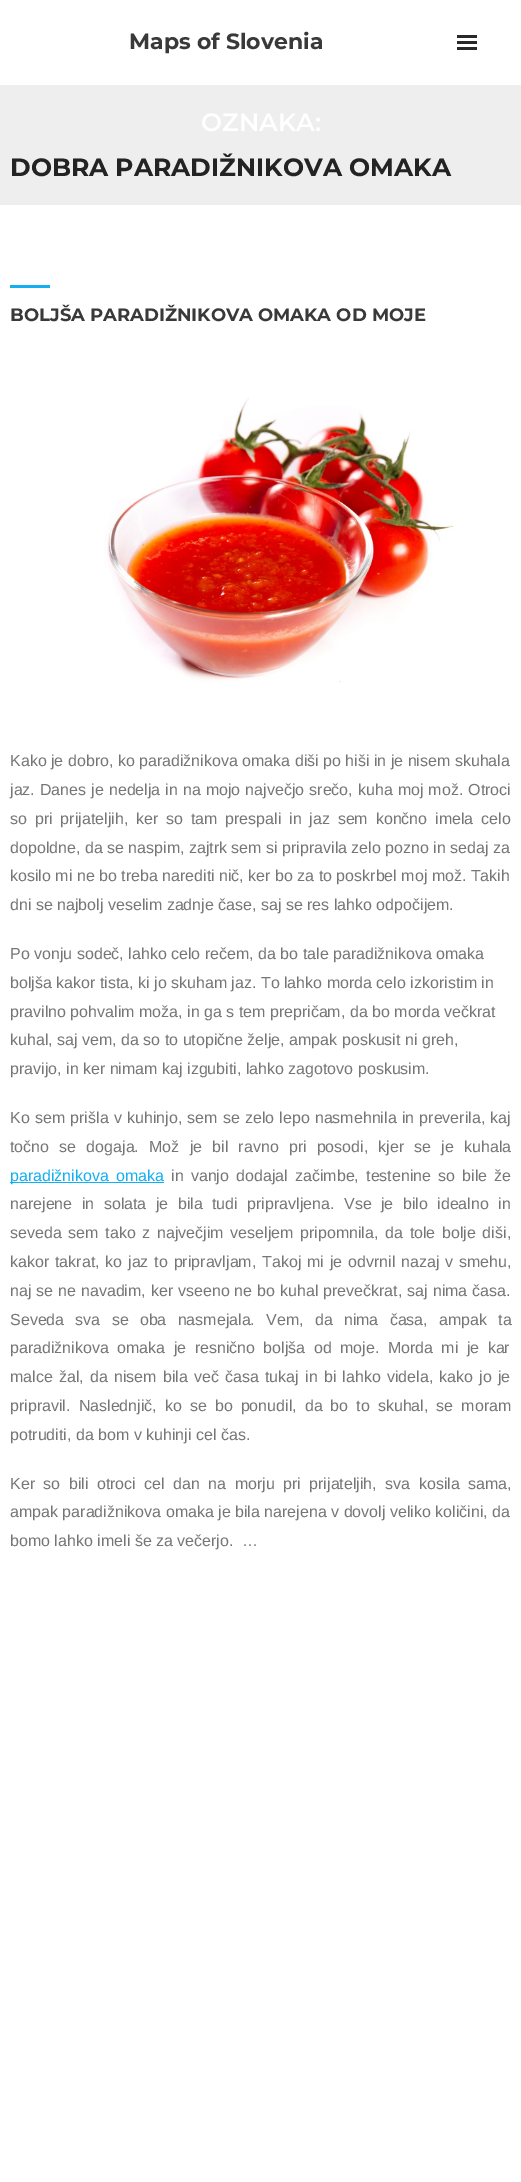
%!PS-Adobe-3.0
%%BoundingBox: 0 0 521 2182
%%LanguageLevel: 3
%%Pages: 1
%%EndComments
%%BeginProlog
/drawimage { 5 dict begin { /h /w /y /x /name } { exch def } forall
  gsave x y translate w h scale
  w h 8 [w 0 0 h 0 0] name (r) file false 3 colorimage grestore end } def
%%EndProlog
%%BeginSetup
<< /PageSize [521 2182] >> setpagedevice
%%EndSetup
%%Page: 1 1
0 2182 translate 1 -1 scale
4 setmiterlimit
1 setgray
0 0 521 2182 rectfill
0.161 setgray
457 35 20 3 rectfill
457 41 20 3 rectfill
457 47 20 3 rectfill
0.933 setgray
0 85 521 120 rectfill
0.075 0.686 0.941 setrgbcolor
10 285 40 3 rectfill
(images/1.raw) 104 397 350 286 drawimage
10 1182 154 1 rectfill
/Montserrat-Bold [22 0 0 -22 0 0] selectfont
0.227 0.224 0.224 setrgbcolor
129 49 moveto (Maps of Slovenia) show
/Montserrat-SemiBold [25 0 0 -25 0 0] selectfont
1 setgray
201 131 moveto (OZNAKA:) show
/Montserrat-Bold [25 0 0 -25 0 0] selectfont
0.137 setgray
10 176 moveto (DOBRA PARADIŽNIKOVA OMAKA) show
/Montserrat-Bold [18 0 0 -18 0 0] selectfont
0.227 0.224 0.224 setrgbcolor
10 321 moveto (BOLJŠA PARADIŽNIKOVA OMAKA OD MOJE) show
/LiberationSans-Regular [16 0 0 -16 0 0] selectfont
0.463 setgray
10 766 moveto (Kako je dobro, ko paradižnikova omaka diši po hiši in je nisem skuhala) show
10 795 moveto 0.6 0 32 (jaz. Danes je nedelja in na mojo največjo srečo, kuha moj mož. Otroci) widthshow
10 824 moveto 3.4 0 32 (so pri prijateljih, ker so tam prespali in jaz sem končno imela celo) widthshow
10 853 moveto (dopoldne, da se naspim, zajtrk sem si pripravila zelo pozno in sedaj za) show
10 881 moveto (kosilo mi ne bo treba narediti nič, ker bo za to poskrbel moj mož. Takih) show
10 910 moveto (dni se najbolj veselim zadnje čase, saj se res lahko odpočijem.) show
10 959 moveto (Po vonju sodeč, lahko celo rečem, da bo tale paradižnikova omaka) show
10 988 moveto (boljša kakor tista, ki jo skuham jaz. To lahko morda celo izkoristim in) show
10 1017 moveto (pravilno pohvalim moža, in ga s tem prepričam, da bo morda večkrat) show
10 1045 moveto (kuhal, saj vem, da so to utopične želje, ampak poskusit ni greh,) show
10 1074 moveto (pravijo, in ker nimam kaj izgubiti, lahko zagotovo poskusim.) show
10 1123 moveto 0.75 0 32 (Ko sem prišla v kuhinjo, sem se zelo lepo nasmehnila in preverila, kaj) widthshow
10 1152 moveto 5.75 0 32 (točno se dogaja. Mož je bil ravno pri posodi, kjer se je kuhala) widthshow
0.075 0.686 0.941 setrgbcolor
10 1181 moveto 2.75 0 32 (paradižnikova omaka) widthshow
0.463 setgray
171 1181 moveto 2.75 0 32 (in vanjo dodajal začimbe, testenine so bile že) widthshow
10 1209 moveto 5 0 32 (narejene in solata je bila tudi pripravljena. Vse je bilo idealno in) widthshow
10 1238 moveto 2.25 0 32 (seveda sem tako z največjim veseljem pripomnila, da tole bolje diši,) widthshow
10 1267 moveto 1.4 0 32 (kakor takrat, ko jaz to pripravljam, Takoj mi je odvrnil nazaj v smehu,) widthshow
10 1296 moveto 0.5 0 32 (naj se ne navadim, ker vseeno ne bo kuhal prevečkrat, saj nima časa.) widthshow
10 1325 moveto 6.75 0 32 (Seveda sva se oba nasmejala. Vem, da nima časa, ampak ta) widthshow
10 1353 moveto 4 0 32 (paradižnikova omaka je resnično boljša od moje. Morda mi je kar) widthshow
10 1382 moveto 1.75 0 32 (malce žal, da nisem bila več časa tukaj in bi lahko videla, kako jo je) widthshow
10 1411 moveto 3.6 0 32 (pripravil. Naslednjič, ko se bo ponudil, da bo to skuhal, se moram) widthshow
10 1440 moveto (potruditi, da bom v kuhinji cel čas.) show
10 1489 moveto 4 0 32 (Ker so bili otroci cel dan na morju pri prijateljih, sva kosila sama,) widthshow
10 1517 moveto (ampak paradižnikova omaka je bila narejena v dovolj veliko količini, da) show
10 1546 moveto (bomo lahko imeli še za večerjo.  …) show
showpage
%%EOF
